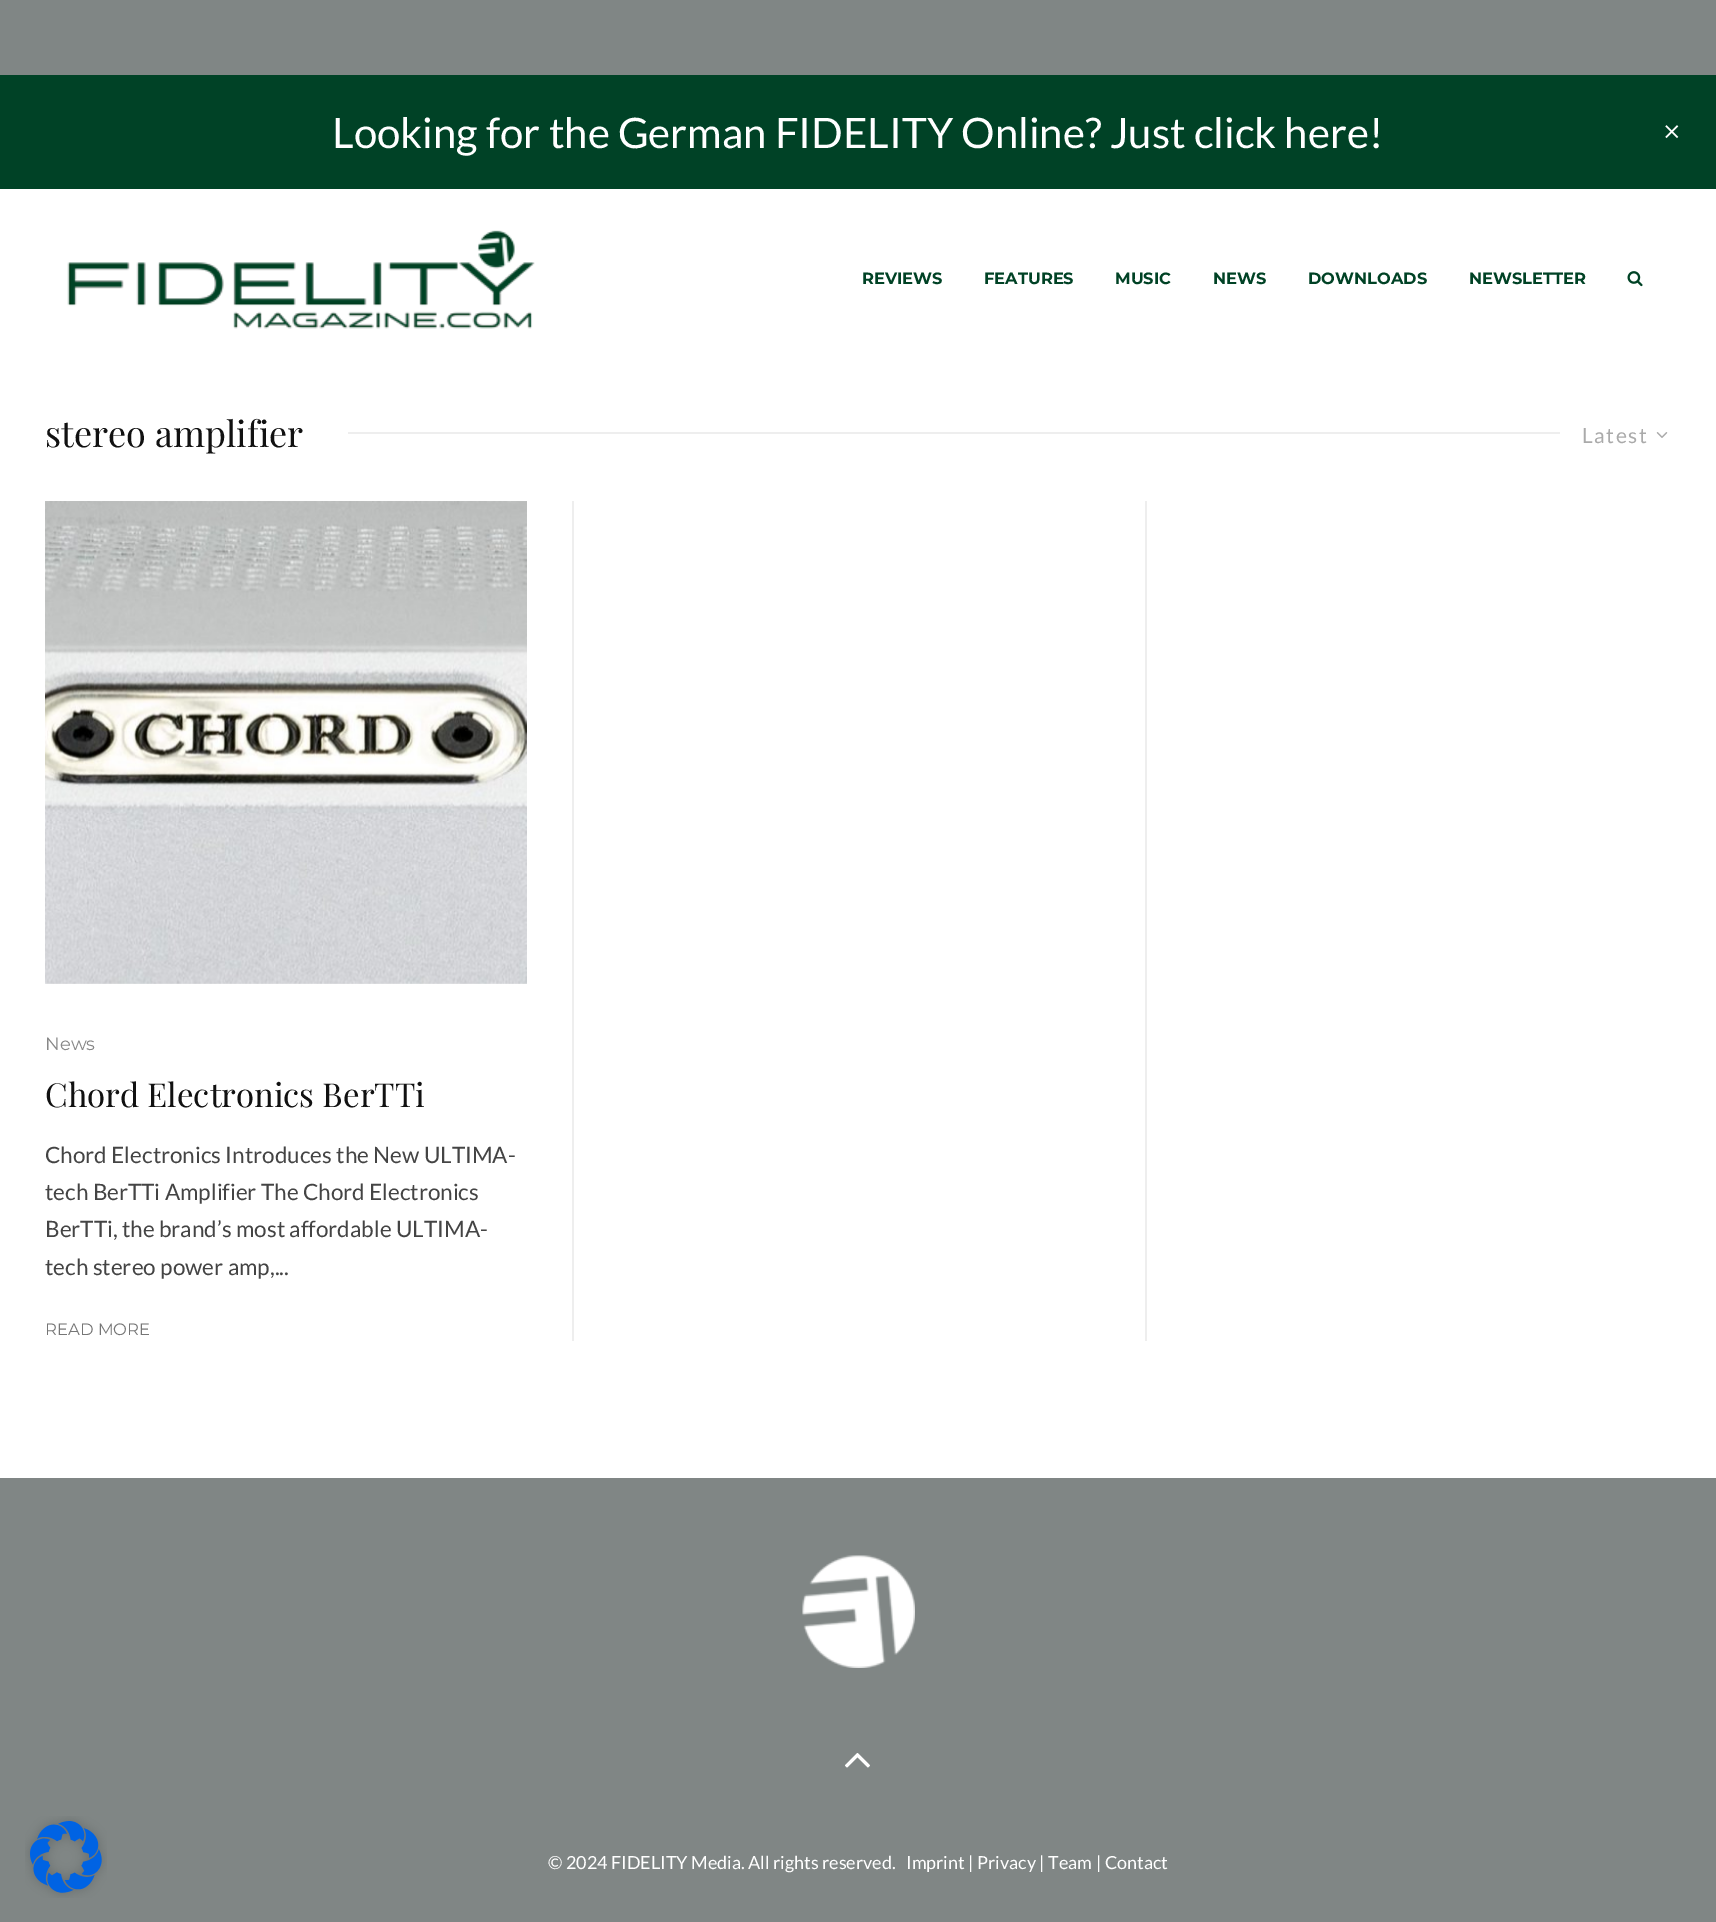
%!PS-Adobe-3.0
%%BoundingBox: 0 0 1716 1922
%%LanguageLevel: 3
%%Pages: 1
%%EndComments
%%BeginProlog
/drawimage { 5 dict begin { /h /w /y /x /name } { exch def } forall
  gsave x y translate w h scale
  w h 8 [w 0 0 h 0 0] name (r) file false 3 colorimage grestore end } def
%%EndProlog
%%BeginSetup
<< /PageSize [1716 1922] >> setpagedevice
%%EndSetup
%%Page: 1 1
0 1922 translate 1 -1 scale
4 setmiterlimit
1 setgray
0 0 1716 1922 rectfill
0.502 0.525 0.522 setrgbcolor
0 0 1716 75 rectfill
0 0.259 0.149 setrgbcolor
0 75 1716 114 rectfill
(images/1.raw) 1665 125 14 14 drawimage
(images/2.raw) 67 230 468 99 drawimage
(images/3.raw) 1627 271 16 16 drawimage
0.933 setgray
348 432 1212 2 rectfill
(images/4.raw) 1656 432 12 6 drawimage
(images/5.raw) 45 501 482 483 drawimage
572 501 2 840 rectfill
1145 501 2 840 rectfill
0.502 0.525 0.522 setrgbcolor
0 1478 1716 444 rectfill
(images/6.raw) 802 1555 113 113 drawimage
(images/7.raw) 845 1753 25 15 drawimage
(images/8.raw) 25 1816 82 82 drawimage
/Lato-Regular [42 0 0 -42 0 0] selectfont
1 setgray
332 148 moveto (Looking for the German FIDELITY Online? Just click here!) show
/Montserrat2-Thin [16.25 0 0 -16.25 0 0] selectfont
0 0.259 0.145 setrgbcolor
862 284 moveto (REVIEWS) show
984 284 moveto (FEATURES) show
1115 284 moveto (MUSIC) show
1213 284 moveto (NEWS) show
1308 284 moveto (DOWNLOADS) show
1469 284 moveto (NEWSLETTER) show
/PlayfairDisplay-Regular [36 0 0 -36 0 0] selectfont
0.067 setgray
45 447 moveto (stereo amplifier) show
/Lato-Regular [21 0 0 -21 0 0] selectfont
0.667 setgray
1582 443 moveto 1.5 0 (Latest) ashow
/Montserrat-Thin [18 0 0 -18 0 0] selectfont
0.533 setgray
45 1050 moveto (News) show
/PlayfairDisplay-Regular [33 0 0 -33 0 0] selectfont
0.067 setgray
45 1107 moveto (Chord Electronics BerTTi) show
/Lato-Regular [22.5 0 0 -22.5 0 0] selectfont
0.267 setgray
45 1163 moveto (Chord Electronics Introduces the New ULTIMA-) show
45 1200 moveto (tech BerTTi Amplifier The Chord Electronics) show
45 1237 moveto (BerTTi, the brand’s most affordable ULTIMA-) show
45 1275 moveto (tech stereo power amp,...) show
/Montserrat-Thin [16.5 0 0 -16.5 0 0] selectfont
0.463 setgray
45 1335 moveto (READ MORE) show
/Lato-Regular [18 0 0 -18 0 0] selectfont
1 setgray
548 1869 moveto (© 2024 FIDELITY Media. All rights reserved.) show
906 1869 moveto (Imprint | Privacy | Team | Contact) show
showpage
%%EOF
